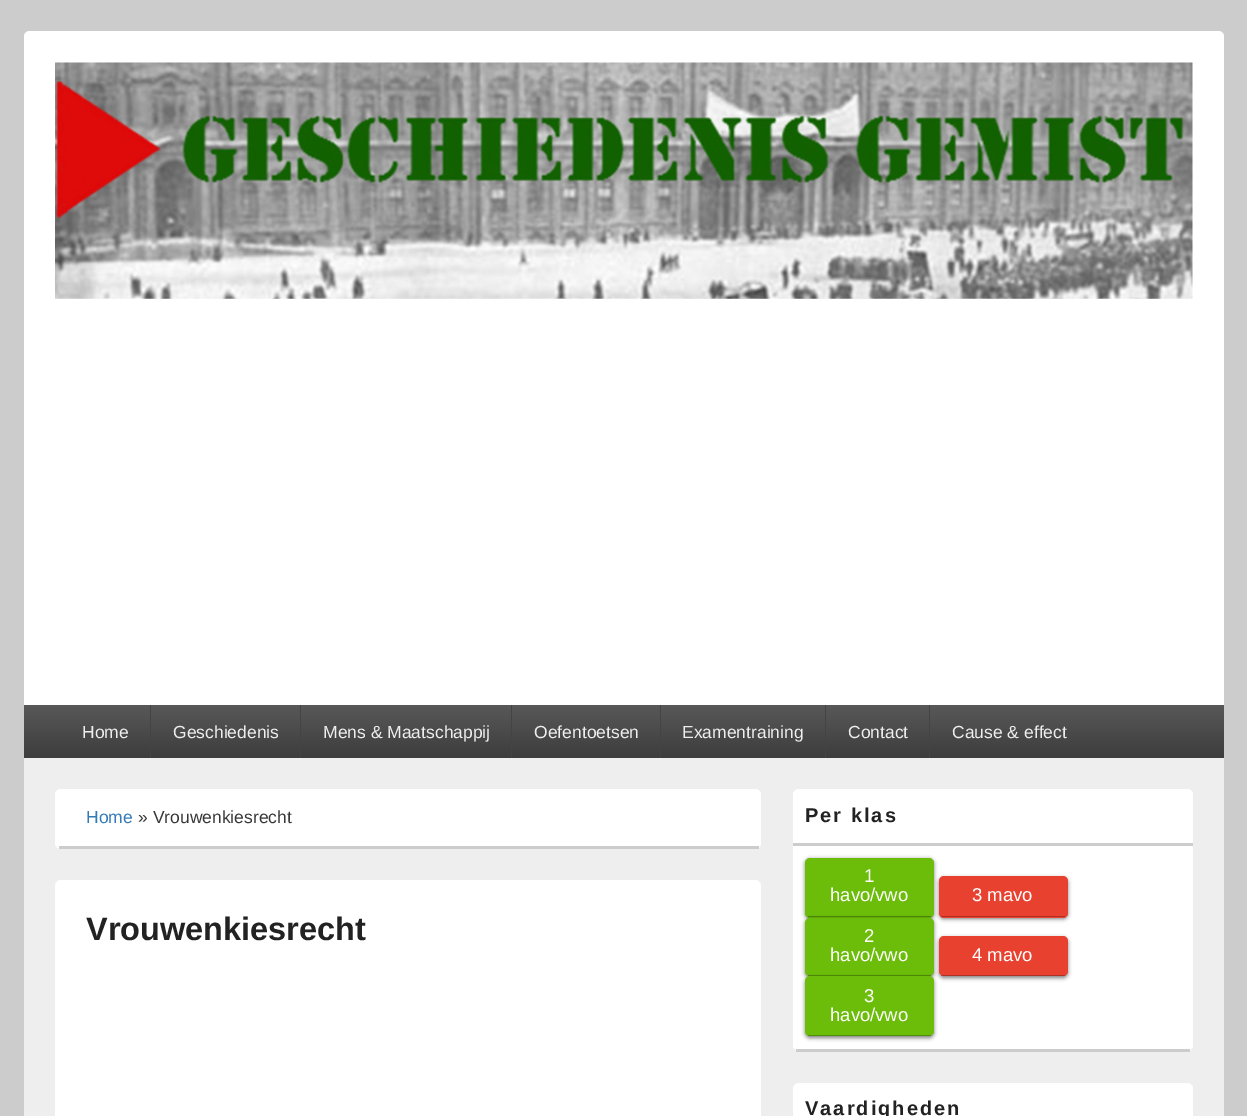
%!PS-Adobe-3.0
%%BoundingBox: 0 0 1247 1116
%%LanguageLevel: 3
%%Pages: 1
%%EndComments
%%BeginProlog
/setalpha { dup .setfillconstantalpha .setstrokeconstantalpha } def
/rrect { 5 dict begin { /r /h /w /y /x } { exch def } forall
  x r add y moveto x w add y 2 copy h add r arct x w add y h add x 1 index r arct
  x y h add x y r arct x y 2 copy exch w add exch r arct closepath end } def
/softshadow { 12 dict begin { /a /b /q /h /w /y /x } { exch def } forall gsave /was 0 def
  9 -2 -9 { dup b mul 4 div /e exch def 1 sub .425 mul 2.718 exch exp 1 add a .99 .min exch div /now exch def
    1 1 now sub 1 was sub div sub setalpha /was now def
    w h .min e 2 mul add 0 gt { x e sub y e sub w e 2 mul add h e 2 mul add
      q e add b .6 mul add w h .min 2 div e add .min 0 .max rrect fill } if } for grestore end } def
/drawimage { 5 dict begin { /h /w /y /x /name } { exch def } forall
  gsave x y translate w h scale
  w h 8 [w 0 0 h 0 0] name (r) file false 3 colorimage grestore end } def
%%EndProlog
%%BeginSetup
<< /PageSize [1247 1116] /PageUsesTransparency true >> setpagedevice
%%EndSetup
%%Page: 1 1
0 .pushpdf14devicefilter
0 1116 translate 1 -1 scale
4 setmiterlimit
0.8 setgray
0 0 1247 1116 rectfill
0.933 setgray
24 31 1200 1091 6 rrect fill
1 setgray
newpath 30 31 moveto 1218 31 lineto 1221.5 31 1224 33.5 1224 37 curveto 1224 758 lineto 24 758 lineto 24 37 lineto 24 33.5 26.5 31 30 31 curveto closepath fill
(images/1.raw) 55 62 1138 237 drawimage
gsave newpath 24 705 moveto 1224 705 lineto 1224 758 lineto 24 758 lineto closepath clip newpath
<< /ShadingType 2 /ColorSpace /DeviceRGB /Coords [624 705 624 758] /Extend [true true] /Function << /FunctionType 2 /Domain [0 1] /C0 [0.345 0.345 0.345] /C1 [0.239 0.239 0.239] /N 1 >> >> shfill grestore
0.267 setgray
150 705 1 53 rectfill
300 705 1 53 rectfill
511 705 1 53 rectfill
660 705 1 53 rectfill
825 705 1 53 rectfill
929 705 1 53 rectfill
1 setgray
55 789 706 60 6 rrect fill
0.8 setgray
59 846 700 3 rectfill
1 setgray
55 880 706 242 6 rrect fill
793 789 400 262 6 rrect fill
0.8 setgray
796 1049 394 3 rectfill
793 843 400 3 rectfill
0 setgray
805 859 129 60 5 2 0.5 softshadow
0.42 0.741 0.035 setrgbcolor
805 858 129 60 5 rrect fill
0.314 0.557 0.027 setrgbcolor
808 916 123 1 rectfill
0 setgray
939 878 129 41 5 2 0.5 softshadow
0.91 0.255 0.188 setrgbcolor
939 876 129 42 5 rrect fill
0.682 0.192 0.141 setrgbcolor
941 916 124 1 rectfill
0 setgray
805 919 129 59 5 2 0.5 softshadow
0.42 0.741 0.035 setrgbcolor
805 918 129 58 5 rrect fill
0.25 setalpha
0 setgray
808 975 123 1 rectfill
1 setalpha
939 938 129 40 5 2 0.5 softshadow
0.91 0.255 0.188 setrgbcolor
939 936 129 40 5 rrect fill
0.25 setalpha
0 setgray
941 975 124 1 rectfill
1 setalpha
805 978 129 60 5 2 0.5 softshadow
0.42 0.741 0.035 setrgbcolor
805 976 129 60 5 rrect fill
0.25 setalpha
0 setgray
808 1035 123 1 rectfill
1 setalpha
1 setgray
793 1083 400 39 6 rrect fill
/LiberationSans-Regular [17.5 0 0 -17.5 0 0] selectfont
0.933 setgray
82 738 moveto (Home) show
173 738 moveto (Geschiedenis) show
323 738 moveto (Mens & Maatschappij) show
534 738 moveto (Oefentoetsen) show
682 738 moveto (Examentraining) show
848 738 moveto (Contact) show
952 738 moveto (Cause & effect) show
0.2 0.478 0.718 setrgbcolor
86 823 moveto (Home) show
0.216 setgray
138 823 moveto (» Vrouwenkiesrecht) show
/LiberationSans-Bold [32.5 0 0 -32.5 0 0] selectfont
0.133 setgray
86 940 moveto (Vrouwenkiesrecht) show
/LiberationSans-Bold [20 0 0 -20 0 0] selectfont
805 822 moveto 2 0 (Per klas) ashow
/LiberationSans-Regular [18.5 0 0 -18.5 0 0] selectfont
1 setgray
864 882 moveto (1) show
830 901 moveto (havo/vwo) show
972 901 moveto (3 mavo) show
864 942 moveto (2) show
830 961 moveto (havo/vwo) show
972 961 moveto (4 mavo) show
864 1002 moveto (3) show
830 1021 moveto (havo/vwo) show
/LiberationSans-Bold [20 0 0 -20 0 0] selectfont
0.133 setgray
805 1115 moveto 2 0 (Vaardigheden) ashow
.poppdf14devicefilter showpage
%%EOF
